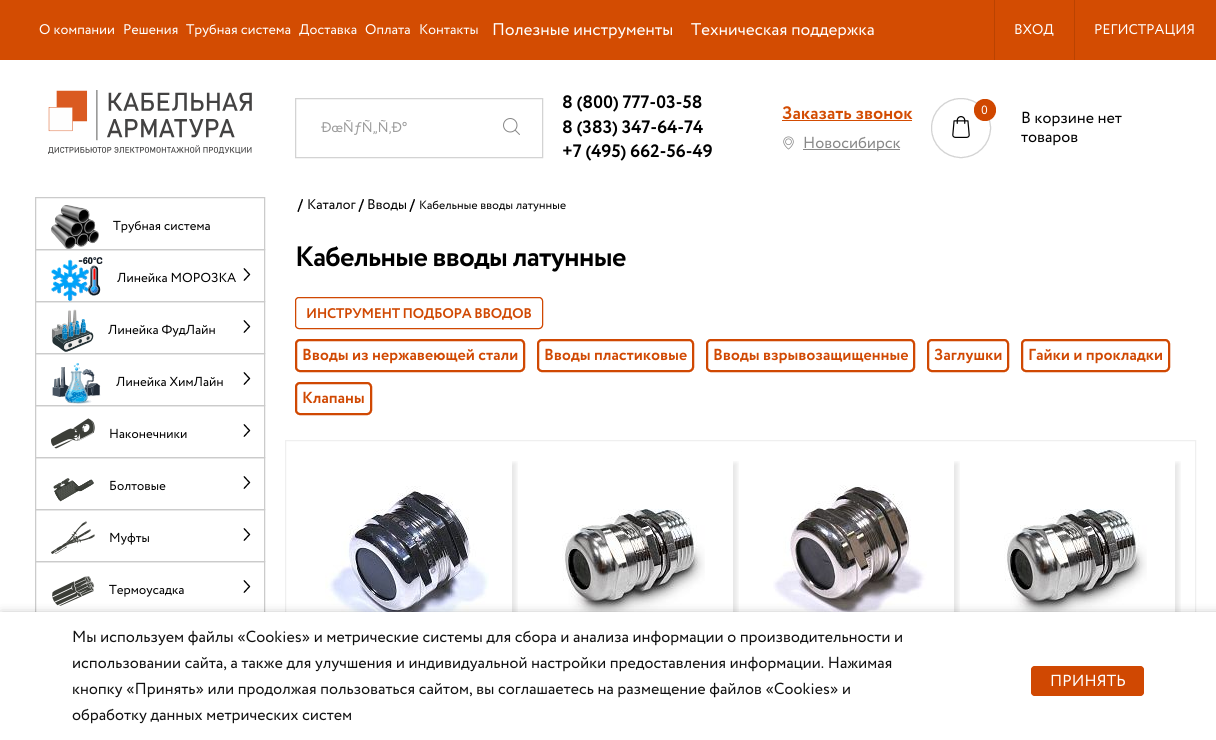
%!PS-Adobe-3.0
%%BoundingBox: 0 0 1216 740
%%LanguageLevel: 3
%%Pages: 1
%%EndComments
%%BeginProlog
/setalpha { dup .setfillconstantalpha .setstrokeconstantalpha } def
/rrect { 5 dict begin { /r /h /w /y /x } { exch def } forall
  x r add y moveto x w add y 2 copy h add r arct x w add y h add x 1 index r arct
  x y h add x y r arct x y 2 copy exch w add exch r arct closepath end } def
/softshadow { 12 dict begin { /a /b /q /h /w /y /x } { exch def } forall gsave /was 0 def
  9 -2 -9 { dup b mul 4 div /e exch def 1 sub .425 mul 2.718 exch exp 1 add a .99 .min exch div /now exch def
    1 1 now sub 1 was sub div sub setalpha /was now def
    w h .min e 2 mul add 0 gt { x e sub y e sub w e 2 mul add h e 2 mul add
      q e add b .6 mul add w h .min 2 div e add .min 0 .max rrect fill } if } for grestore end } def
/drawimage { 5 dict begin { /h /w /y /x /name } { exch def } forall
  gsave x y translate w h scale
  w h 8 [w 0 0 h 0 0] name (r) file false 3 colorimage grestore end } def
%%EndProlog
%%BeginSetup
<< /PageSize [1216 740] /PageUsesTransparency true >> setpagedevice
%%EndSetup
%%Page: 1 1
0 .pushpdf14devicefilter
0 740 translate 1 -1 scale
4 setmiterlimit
1 setgray
0 0 1216 740 rectfill
0.827 0.298 0.008 setrgbcolor
0 0 1216 60 rectfill
(images/1.raw) 39 24 75 11 drawimage
(images/2.raw) 124 24 54 11 drawimage
(images/3.raw) 186 24 105 13 drawimage
(images/4.raw) 299 24 58 12 drawimage
(images/5.raw) 365 24 45 11 drawimage
(images/6.raw) 420 24 58 11 drawimage
(images/7.raw) 493 23 179 16 drawimage
(images/8.raw) 691 23 183 16 drawimage
0.729 0.263 0.004 setrgbcolor
994 0 1 60 rectfill
(images/9.raw) 1015 24 39 12 drawimage
1074 0 1 60 rectfill
(images/10.raw) 1095 24 99 12 drawimage
(images/11.raw) 48 90 204 64 drawimage
0.827 setgray
295.5 98.5 247 59 rectstroke
(images/12.raw) 321 120 86 15 drawimage
(images/13.raw) 503 118 17 17 drawimage
(images/14.raw) 563 95 139 17 drawimage
(images/15.raw) 563 120 140 17 drawimage
(images/16.raw) 563 144 149 17 drawimage
(images/17.raw) 782 106 131 14 drawimage
0.827 0.298 0.008 setrgbcolor
782 120 130 1 rectfill
(images/18.raw) 783 136 11 14 drawimage
0.533 setgray
803 149 97 1 rectfill
(images/19.raw) 804 136 97 16 drawimage
0.827 setgray
newpath 961 128 29.5 0 360 arc closepath stroke
0.816 0.278 0 setrgbcolor
newpath 985 110 11 0 360 arc closepath fill
(images/20.raw) 981 105 7 10 drawimage
(images/21.raw) 952 116 18 22 drawimage
(images/22.raw) 1022 111 100 16 drawimage
(images/23.raw) 1021 134 57 12 drawimage
0.796 setgray
35.5 197.5 229 52 rectstroke
(images/24.raw) 51 205 48 44 drawimage
(images/25.raw) 113 220 97 13 drawimage
35.5 249.5 229 52 rectstroke
(images/26.raw) 51 257 52 44 drawimage
(images/27.raw) 117 272 119 11 drawimage
0 setgray
newpath 244 268.5 moveto 249.5 274.5 lineto 244 280.5 lineto stroke
0.796 setgray
35.5 301.5 229 52 rectstroke
(images/28.raw) 51 309 43 43 drawimage
(images/29.raw) 108 324 107 13 drawimage
0 setgray
newpath 244 320.5 moveto 249.5 326.5 lineto 244 332.5 lineto stroke
0.796 setgray
35.5 353.5 229 52 rectstroke
(images/30.raw) 52 363 49 41 drawimage
(images/31.raw) 116 376 107 11 drawimage
0 setgray
newpath 244 372.5 moveto 249.5 378.5 lineto 244 384.5 lineto stroke
0.796 setgray
35.5 405.5 229 52 rectstroke
(images/32.raw) 51 418 44 31 drawimage
(images/33.raw) 110 428 77 11 drawimage
0 setgray
newpath 244 424.5 moveto 249.5 430.5 lineto 244 436.5 lineto stroke
0.796 setgray
35.5 457.5 229 52 rectstroke
(images/34.raw) 53 478 41 24 drawimage
(images/35.raw) 110 480 56 11 drawimage
0 setgray
newpath 244 476.5 moveto 249.5 482.5 lineto 244 488.5 lineto stroke
0.796 setgray
35.5 509.5 229 52 rectstroke
(images/36.raw) 51 521 44 33 drawimage
(images/37.raw) 110 532 39 13 drawimage
0 setgray
newpath 244 528.5 moveto 249.5 534.5 lineto 244 540.5 lineto stroke
0.796 setgray
35.5 561.5 229 52 rectstroke
(images/38.raw) 52 576 43 30 drawimage
(images/39.raw) 109 584 75 13 drawimage
0 setgray
newpath 244 580.5 moveto 249.5 586.5 lineto 244 592.5 lineto stroke
newpath 302 199 moveto 303 199.5 lineto 298.5 212 lineto 297.5 211.5 lineto closepath fill
(images/40.raw) 308 199 48 11 drawimage
newpath 363 199 moveto 364 199.5 lineto 359.5 212 lineto 358.5 211.5 lineto closepath fill
(images/41.raw) 368 199 38 12 drawimage
newpath 414 199 moveto 415 199.5 lineto 410.5 212 lineto 409.5 211.5 lineto closepath fill
(images/42.raw) 420 200 146 12 drawimage
(images/43.raw) 297 246 329 26 drawimage
0.816 0.282 0.008 setrgbcolor
295.5 297.5 247 31 3.5 rrect stroke
(images/44.raw) 307 308 224 12 drawimage
2 setlinewidth
296 340 228 31 4 rrect stroke
(images/45.raw) 303 348 215 16 drawimage
538 340 155 31 4 rrect stroke
(images/46.raw) 545 348 142 14 drawimage
707 340 207 31 4 rrect stroke
(images/47.raw) 714 348 194 16 drawimage
928 340 80 31 4 rrect stroke
(images/48.raw) 934 348 68 16 drawimage
1022 340 147 31 4 rrect stroke
(images/49.raw) 1029 348 133 16 drawimage
296 383 75 31 4 rrect stroke
(images/50.raw) 303 391 61 13 drawimage
0.937 setgray
1 setlinewidth
285.5 440.5 910 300 rectstroke
gsave
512 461 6 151 rectclip
0 setgray
310 463 206 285 0 2.5 0.09 softshadow
grestore
(images/51.raw) 325 486 164 126 drawimage
gsave
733 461 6 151 rectclip
0 setgray
531 463 206 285 0 2.5 0.09 softshadow
grestore
(images/52.raw) 562 509 143 103 drawimage
gsave
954 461 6 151 rectclip
0 setgray
752 463 206 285 0 2.5 0.09 softshadow
grestore
(images/53.raw) 773 485 154 127 drawimage
gsave
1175 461 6 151 rectclip
0 setgray
973 463 206 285 0 2.5 0.09 softshadow
grestore
(images/52.raw) 1004 509 143 103 drawimage
0 setgray
2 615 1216 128 0 5 0.4 softshadow
1 setgray
0 612 1216 128 rectfill
(images/54.raw) 73 630 829 16 drawimage
(images/55.raw) 73 656 819 16 drawimage
(images/56.raw) 73 682 777 16 drawimage
(images/57.raw) 72 708 279 16 drawimage
0.816 0.282 0.008 setrgbcolor
1031 666 113 30 4 rrect fill
(images/58.raw) 1051 674 74 12 drawimage
.poppdf14devicefilter showpage
%%EOF
